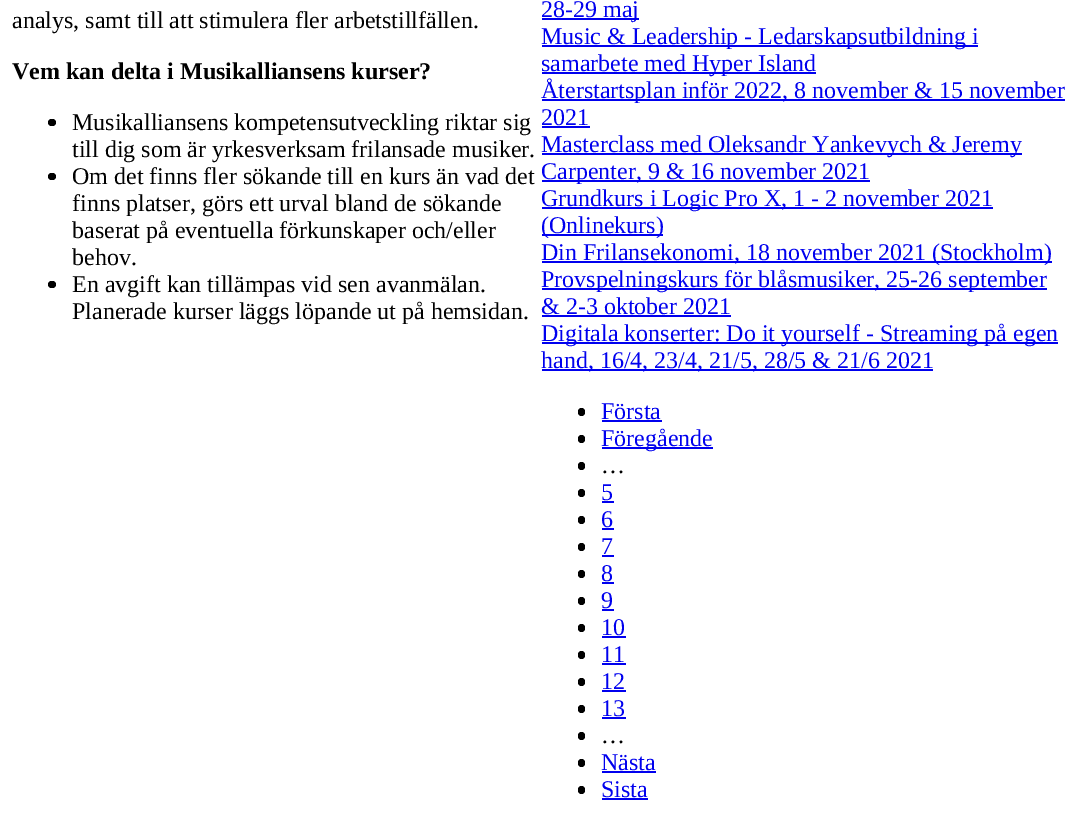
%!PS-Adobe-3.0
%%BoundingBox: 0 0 1081 831
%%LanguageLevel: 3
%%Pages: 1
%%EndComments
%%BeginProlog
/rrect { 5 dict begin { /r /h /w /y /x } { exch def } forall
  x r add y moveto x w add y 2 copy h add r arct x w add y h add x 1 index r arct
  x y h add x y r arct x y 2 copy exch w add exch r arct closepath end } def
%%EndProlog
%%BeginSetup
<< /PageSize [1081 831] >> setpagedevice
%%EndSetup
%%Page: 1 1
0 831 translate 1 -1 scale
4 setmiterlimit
1 setgray
0 0 1081 831 rectfill
0 setgray
48 119 8 7 3.5 rrect fill
48 173 8 7 3.5 rrect fill
48 281 8 7 3.5 rrect fill
0 0 0.933 setrgbcolor
542 18 97 2 rectfill
542 45 436 2 rectfill
542 72 274 2 rectfill
542 99 523 2 rectfill
542 126 48 2 rectfill
542 153 480 2 rectfill
542 180 328 2 rectfill
542 207 451 2 rectfill
542 234 121 2 rectfill
542 261 510 2 rectfill
542 288 505 2 rectfill
542 315 189 2 rectfill
542 342 516 2 rectfill
542 369 391 2 rectfill
0 setgray
578 408 7 8 3.5 rrect fill
0 0 0.933 setrgbcolor
602 420 60 2 rectfill
0 setgray
578 435 7 8 3.5 rrect fill
0 0 0.933 setrgbcolor
602 447 111 2 rectfill
0 setgray
578 462 7 8 3.5 rrect fill
578 489 7 8 3.5 rrect fill
0 0 0.933 setrgbcolor
602 501 12 2 rectfill
0 setgray
578 516 7 8 3.5 rrect fill
0 0 0.933 setrgbcolor
602 528 12 2 rectfill
0 setgray
578 543 7 8 3.5 rrect fill
0 0 0.933 setrgbcolor
602 555 12 2 rectfill
0 setgray
578 570 7 8 3.5 rrect fill
0 0 0.933 setrgbcolor
602 582 12 2 rectfill
0 setgray
578 597 7 8 3.5 rrect fill
0 0 0.933 setrgbcolor
602 609 12 2 rectfill
0 setgray
578 624 7 8 3.5 rrect fill
0 0 0.933 setrgbcolor
602 636 24 2 rectfill
0 setgray
578 651 7 8 3.5 rrect fill
0 0 0.933 setrgbcolor
602 663 24 2 rectfill
0 setgray
578 678 7 8 3.5 rrect fill
0 0 0.933 setrgbcolor
602 690 24 2 rectfill
0 setgray
578 705 7 8 3.5 rrect fill
0 0 0.933 setrgbcolor
602 717 24 2 rectfill
0 setgray
578 732 7 8 3.5 rrect fill
578 759 7 8 3.5 rrect fill
0 0 0.933 setrgbcolor
602 771 54 2 rectfill
0 setgray
578 786 7 8 3.5 rrect fill
0 0 0.933 setrgbcolor
602 798 46 2 rectfill
/LiberationSerif-Regular [24 0 0 -24 0 0] selectfont
0 setgray
12 28 moveto (analys, samt till att stimulera fler arbetstillfällen.) show
/LiberationSerif-Bold [24 0 0 -24 0 0] selectfont
12 79 moveto (Vem kan delta i Musikalliansens kurser?) show
/LiberationSerif-Regular [24 0 0 -24 0 0] selectfont
72 130 moveto (Musikalliansens kompetensutveckling riktar sig) show
72 157 moveto (till dig som är yrkesverksam frilansade musiker.) show
72 184 moveto (Om det finns fler sökande till en kurs än vad det) show
72 211 moveto (finns platser, görs ett urval bland de sökande) show
72 238 moveto (baserat på eventuella förkunskaper och/eller) show
72 265 moveto (behov.) show
72 292 moveto (En avgift kan tillämpas vid sen avanmälan.) show
72 319 moveto (Planerade kurser läggs löpande ut på hemsidan.) show
0 0 0.933 setrgbcolor
541 17 moveto (28-29 maj) show
541 44 moveto (Music & Leadership - Ledarskapsutbildning i) show
541 71 moveto (samarbete med Hyper Island) show
541 98 moveto (Återstartsplan inför 2022, 8 november & 15 november) show
541 125 moveto (2021) show
541 152 moveto (Masterclass med Oleksandr Yankevych & Jeremy) show
541 179 moveto (Carpenter, 9 & 16 november 2021) show
541 206 moveto (Grundkurs i Logic Pro X, 1 - 2 november 2021) show
541 233 moveto (\(Onlinekurs\)) show
541 260 moveto (Din Frilansekonomi, 18 november 2021 \(Stockholm\)) show
541 287 moveto (Provspelningskurs för blåsmusiker, 25-26 september) show
541 314 moveto (& 2-3 oktober 2021) show
541 341 moveto (Digitala konserter: Do it yourself - Streaming på egen) show
541 368 moveto (hand, 16/4, 23/4, 21/5, 28/5 & 21/6 2021) show
601 419 moveto (Första) show
601 446 moveto (Föregående) show
0 setgray
601 473 moveto (…) show
0 0 0.933 setrgbcolor
601 500 moveto (5) show
601 527 moveto (6) show
601 554 moveto (7) show
601 581 moveto (8) show
601 608 moveto (9) show
601 635 moveto (10) show
601 662 moveto (11) show
601 689 moveto (12) show
601 716 moveto (13) show
0 setgray
601 743 moveto (…) show
0 0 0.933 setrgbcolor
601 770 moveto (Nästa) show
601 797 moveto (Sista) show
showpage
%%EOF
